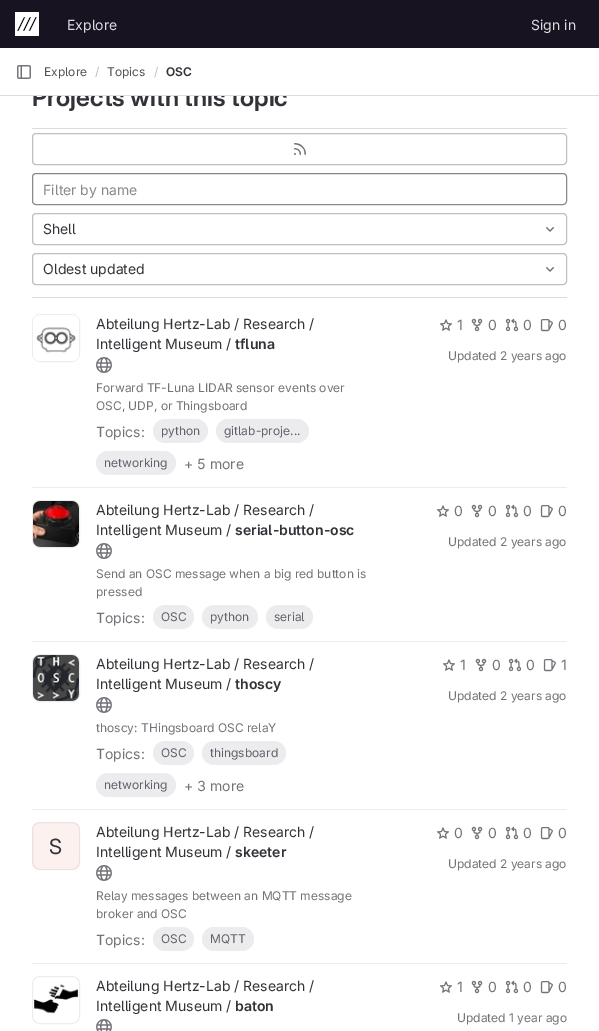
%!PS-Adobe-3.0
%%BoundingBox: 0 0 599 1031
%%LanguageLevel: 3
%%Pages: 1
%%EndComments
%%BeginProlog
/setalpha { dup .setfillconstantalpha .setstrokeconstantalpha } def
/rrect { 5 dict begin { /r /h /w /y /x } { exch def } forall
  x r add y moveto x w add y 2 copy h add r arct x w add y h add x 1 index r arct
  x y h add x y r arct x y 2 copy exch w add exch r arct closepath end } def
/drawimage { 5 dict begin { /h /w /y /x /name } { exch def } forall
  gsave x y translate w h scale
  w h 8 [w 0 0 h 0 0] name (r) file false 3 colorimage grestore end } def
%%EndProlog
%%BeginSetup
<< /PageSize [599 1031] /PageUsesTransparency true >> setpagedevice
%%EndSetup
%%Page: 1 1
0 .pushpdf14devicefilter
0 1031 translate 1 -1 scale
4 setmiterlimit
1 setgray
0 0 599 1031 rectfill
0.09 0.075 0.129 setrgbcolor
0 0 599 48 rectfill
(images/1.raw) 15 12 24 24 drawimage
(images/2.raw) 17 65 14 14 drawimage
0.863 0.863 0.871 setrgbcolor
32 128 535 1 rectfill
32 297 535 1 rectfill
0.749 0.749 0.765 setrgbcolor
32.5 133.5 534 31 3.5 rrect stroke
(images/3.raw) 294 143 12 12 drawimage
0.537 0.533 0.553 setrgbcolor
32.5 173.5 534 31 3.5 rrect stroke
0.749 0.749 0.765 setrgbcolor
32.5 213.5 534 31 3.5 rrect stroke
(images/4.raw) 546 227 8 5 drawimage
32.5 253.5 534 31 3.5 rrect stroke
(images/4.raw) 546 267 8 5 drawimage
0.925 0.925 0.937 setrgbcolor
32 487 535 1 rectfill
0.929 setgray
32.5 314.5 47 47 7.5 rrect stroke
(images/5.raw) 33 315 46 46 drawimage
(images/6.raw) 96 357 16 16 drawimage
0.925 0.925 0.937 setrgbcolor
153 419 55 24 12 rrect fill
216 419 93 24 12 rrect fill
96 451 80 24 12 rrect fill
(images/7.raw) 439 319 14 12 drawimage
(images/8.raw) 471 318 12 14 drawimage
(images/9.raw) 505 318 14 14 drawimage
(images/10.raw) 540 319 13 13 drawimage
32 641 535 1 rectfill
0.929 setgray
32.5 500.5 47 47 7.5 rrect stroke
(images/11.raw) 33 501 46 46 drawimage
(images/12.raw) 96 543 16 16 drawimage
0.925 0.925 0.937 setrgbcolor
153 605 41 24 12 rrect fill
202 605 56 24 12 rrect fill
266 605 47 24 12 rrect fill
(images/7.raw) 436 505 14 12 drawimage
(images/8.raw) 471 504 12 14 drawimage
(images/9.raw) 505 504 14 14 drawimage
(images/10.raw) 540 505 13 13 drawimage
32 809 535 1 rectfill
0.929 setgray
32.5 654.5 47 47 7.5 rrect stroke
(images/13.raw) 33 655 46 46 drawimage
(images/12.raw) 96 697 16 16 drawimage
0.925 0.925 0.937 setrgbcolor
153 741 41 24 12 rrect fill
202 741 84 24 12 rrect fill
96 773 80 24 12 rrect fill
(images/7.raw) 442 659 14 12 drawimage
(images/14.raw) 475 658 12 14 drawimage
(images/15.raw) 508 658 14 14 drawimage
(images/10.raw) 543 659 13 13 drawimage
32 963 535 1 rectfill
0.988 0.945 0.937 setrgbcolor
32 822 48 48 8 rrect fill
0.08 setalpha
0.122 0.118 0.141 setrgbcolor
32.5 822.5 47 47 7.5 rrect stroke
1 setalpha
(images/6.raw) 96 865 16 16 drawimage
0.925 0.925 0.937 setrgbcolor
153 927 41 24 12 rrect fill
202 927 52 24 12 rrect fill
(images/7.raw) 436 827 14 12 drawimage
(images/8.raw) 471 826 12 14 drawimage
(images/9.raw) 505 826 14 14 drawimage
(images/10.raw) 540 827 13 13 drawimage
0.929 setgray
32.5 976.5 47 47 7.5 rrect stroke
(images/16.raw) 34 984 45 30 drawimage
(images/17.raw) 96 1019 16 12 drawimage
(images/7.raw) 439 981 14 12 drawimage
(images/8.raw) 471 980 12 14 drawimage
(images/9.raw) 505 980 14 14 drawimage
(images/10.raw) 540 981 13 13 drawimage
/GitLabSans-Regular [14 0 0 -14 0 0] selectfont
0.863 0.863 0.871 setrgbcolor
67 30 moveto (Explore) show
531 30 moveto (Sign in) show
/GitLabSans-Regular [12 0 0 -12 0 0] selectfont
0.325 0.318 0.345 setrgbcolor
44 76 moveto (Explore) show
0.749 0.749 0.765 setrgbcolor
95 76 moveto (/) show
0.325 0.318 0.345 setrgbcolor
107 76 moveto (Topics) show
0.749 0.749 0.765 setrgbcolor
154 76 moveto (/) show
/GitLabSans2-SemiBold [12 0 0 -12 0 0] selectfont
0.2 0.196 0.22 setrgbcolor
166 76 moveto (OSC) show
/GitLabSans-SemiBold [24.5 0 0 -24.5 0 0] selectfont
32 106 moveto (Projects with this topic) show
0.863 0.863 0.871 setrgbcolor
0 95 599 1 rectfill
1 setgray
33 87 253 8 rectfill
/GitLabSans-Regular [14 0 0 -14 0 0] selectfont
0.537 0.533 0.553 setrgbcolor
43 195 moveto (Filter by name) show
0.2 0.196 0.22 setrgbcolor
43 234 moveto (Shell) show
43 274 moveto (Oldest updated) show
96 329 moveto (Abteilung Hertz-Lab / Research /) show
96 349 moveto (Intelligent Museum /) show
/GitLabSans2-SemiBold [14 0 0 -14 0 0] selectfont
235 349 moveto (tfluna) show
/GitLabSans-Regular [12 0 0 -12 0 0] selectfont
0.451 0.447 0.471 setrgbcolor
96 392 moveto (Forward TF-Luna LIDAR sensor events over) show
96 410 moveto (OSC, UDP, or Thingsboard) show
/GitLabSans-Regular [14 0 0 -14 0 0] selectfont
96 437 moveto (Topics:) show
/GitLabSans-Regular [12 0 0 -12 0 0] selectfont
0.384 0.38 0.408 setrgbcolor
161 435 moveto (python) show
224 435 moveto (gitlab-proje...) show
104 467 moveto (networking) show
/GitLabSans-Regular [14 0 0 -14 0 0] selectfont
0.451 0.447 0.471 setrgbcolor
184 469 moveto (+ 5 more) show
457 330 moveto (1) show
488 330 moveto (0) show
523 330 moveto (0) show
558 330 moveto (0) show
/GitLabSans-Regular [12 0 0 -12 0 0] selectfont
448 360 moveto (Updated 2 years ago) show
/GitLabSans-Regular [14 0 0 -14 0 0] selectfont
0.2 0.196 0.22 setrgbcolor
96 515 moveto (Abteilung Hertz-Lab / Research /) show
96 535 moveto (Intelligent Museum /) show
/GitLabSans2-SemiBold [14 0 0 -14 0 0] selectfont
235 535 moveto (serial-button-osc) show
/GitLabSans-Regular [12 0 0 -12 0 0] selectfont
0.451 0.447 0.471 setrgbcolor
96 578 moveto (Send an OSC message when a big red button is) show
96 596 moveto (pressed) show
/GitLabSans-Regular [14 0 0 -14 0 0] selectfont
96 623 moveto (Topics:) show
/GitLabSans-Regular [12 0 0 -12 0 0] selectfont
0.384 0.38 0.408 setrgbcolor
161 621 moveto (OSC) show
210 621 moveto (python) show
274 621 moveto (serial) show
/GitLabSans-Regular [14 0 0 -14 0 0] selectfont
0.451 0.447 0.471 setrgbcolor
454 516 moveto (0) show
488 516 moveto (0) show
523 516 moveto (0) show
558 516 moveto (0) show
/GitLabSans-Regular [12 0 0 -12 0 0] selectfont
448 546 moveto (Updated 2 years ago) show
/GitLabSans-Regular [14 0 0 -14 0 0] selectfont
0.2 0.196 0.22 setrgbcolor
96 669 moveto (Abteilung Hertz-Lab / Research /) show
96 689 moveto (Intelligent Museum /) show
/GitLabSans2-SemiBold [14 0 0 -14 0 0] selectfont
235 689 moveto (thoscy) show
/GitLabSans-Regular [12 0 0 -12 0 0] selectfont
0.451 0.447 0.471 setrgbcolor
96 732 moveto (thoscy: THingsboard OSC relaY) show
/GitLabSans-Regular [14 0 0 -14 0 0] selectfont
96 759 moveto (Topics:) show
/GitLabSans-Regular [12 0 0 -12 0 0] selectfont
0.384 0.38 0.408 setrgbcolor
161 757 moveto (OSC) show
210 757 moveto (thingsboard) show
104 789 moveto (networking) show
/GitLabSans-Regular [14 0 0 -14 0 0] selectfont
0.451 0.447 0.471 setrgbcolor
184 791 moveto (+ 3 more) show
460 670 moveto (1) show
492 670 moveto (0) show
526 670 moveto (0) show
561 670 moveto (1) show
/GitLabSans-Regular [12 0 0 -12 0 0] selectfont
448 700 moveto (Updated 2 years ago) show
/GitLabSans2-Regular [21 0 0 -21 0 0] selectfont
0.2 0.196 0.22 setrgbcolor
49 854 moveto (S) show
/GitLabSans-Regular [14 0 0 -14 0 0] selectfont
96 837 moveto (Abteilung Hertz-Lab / Research /) show
96 857 moveto (Intelligent Museum /) show
/GitLabSans2-SemiBold [14 0 0 -14 0 0] selectfont
235 857 moveto (skeeter) show
/GitLabSans-Regular [12 0 0 -12 0 0] selectfont
0.451 0.447 0.471 setrgbcolor
96 900 moveto (Relay messages between an MQTT message) show
96 918 moveto (broker and OSC) show
/GitLabSans-Regular [14 0 0 -14 0 0] selectfont
96 945 moveto (Topics:) show
/GitLabSans-Regular [12 0 0 -12 0 0] selectfont
0.384 0.38 0.408 setrgbcolor
161 943 moveto (OSC) show
210 943 moveto (MQTT) show
/GitLabSans-Regular [14 0 0 -14 0 0] selectfont
0.451 0.447 0.471 setrgbcolor
454 838 moveto (0) show
488 838 moveto (0) show
523 838 moveto (0) show
558 838 moveto (0) show
/GitLabSans-Regular [12 0 0 -12 0 0] selectfont
448 868 moveto (Updated 2 years ago) show
/GitLabSans-Regular [14 0 0 -14 0 0] selectfont
0.2 0.196 0.22 setrgbcolor
96 991 moveto (Abteilung Hertz-Lab / Research /) show
96 1011 moveto (Intelligent Museum /) show
/GitLabSans2-SemiBold [14 0 0 -14 0 0] selectfont
235 1011 moveto (baton) show
/GitLabSans-Regular [14 0 0 -14 0 0] selectfont
0.451 0.447 0.471 setrgbcolor
457 992 moveto (1) show
488 992 moveto (0) show
523 992 moveto (0) show
558 992 moveto (0) show
/GitLabSans-Regular [12 0 0 -12 0 0] selectfont
457 1022 moveto (Updated 1 year ago) show
.poppdf14devicefilter showpage
%%EOF
